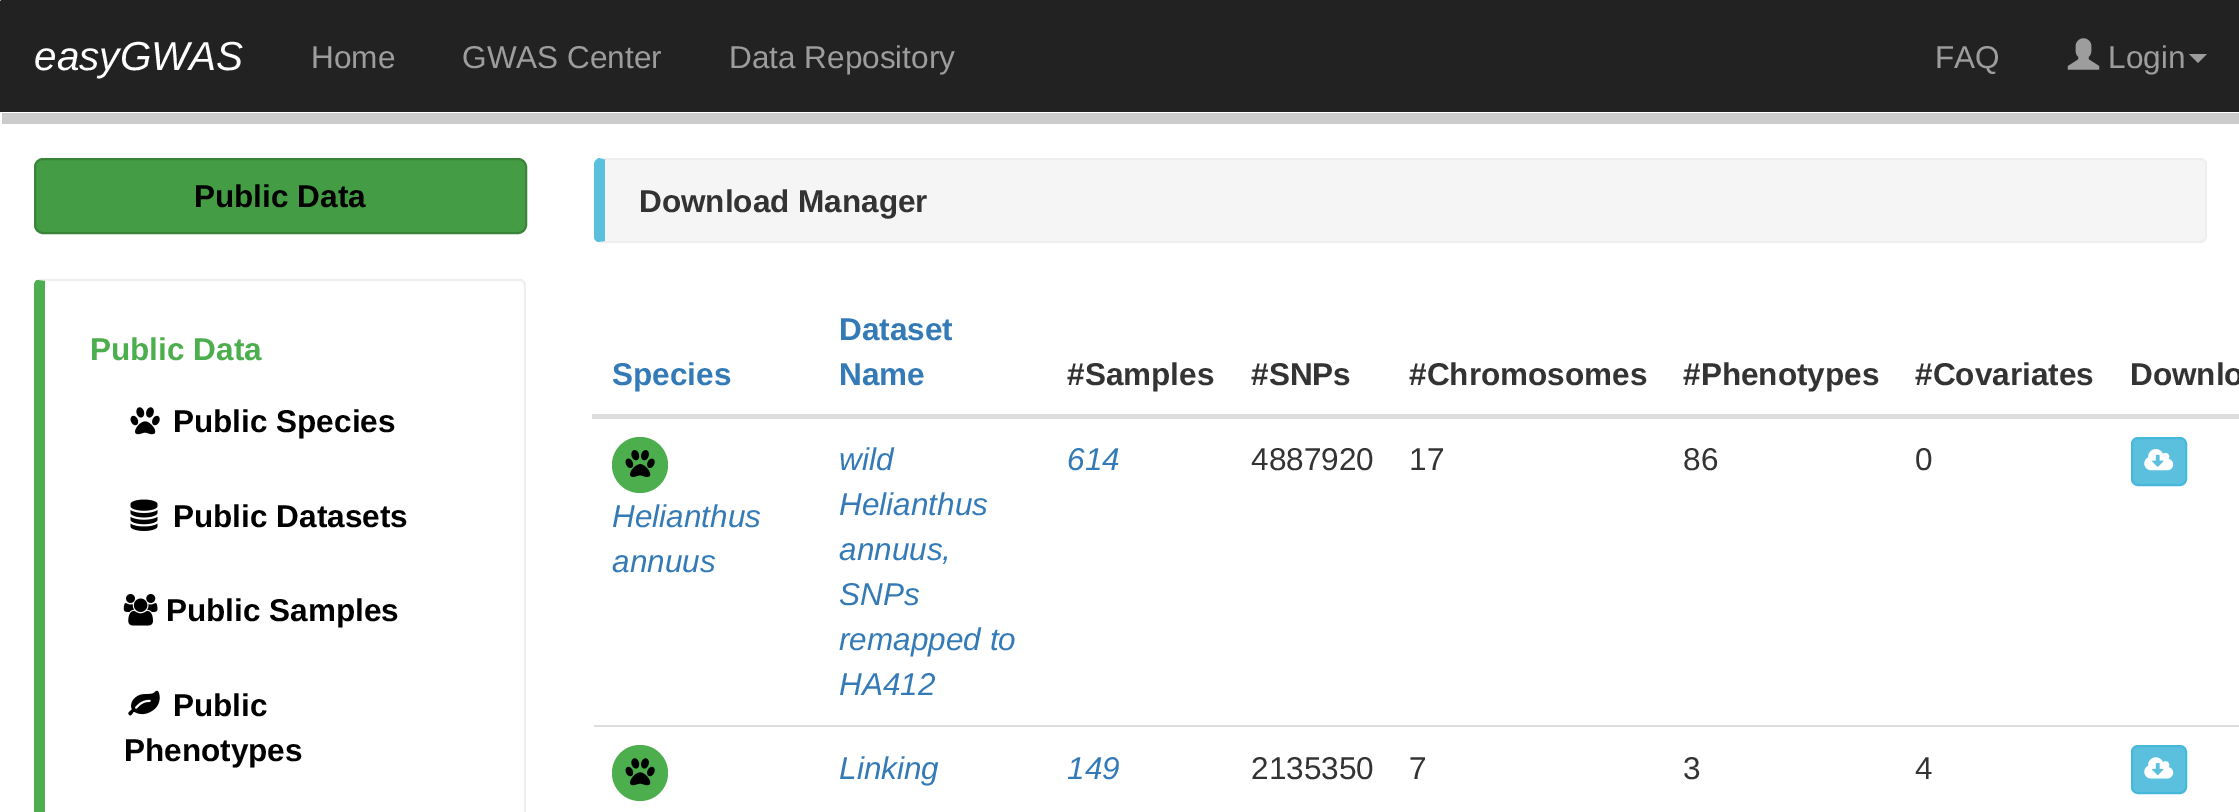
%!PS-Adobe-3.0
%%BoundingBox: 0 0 2239 812
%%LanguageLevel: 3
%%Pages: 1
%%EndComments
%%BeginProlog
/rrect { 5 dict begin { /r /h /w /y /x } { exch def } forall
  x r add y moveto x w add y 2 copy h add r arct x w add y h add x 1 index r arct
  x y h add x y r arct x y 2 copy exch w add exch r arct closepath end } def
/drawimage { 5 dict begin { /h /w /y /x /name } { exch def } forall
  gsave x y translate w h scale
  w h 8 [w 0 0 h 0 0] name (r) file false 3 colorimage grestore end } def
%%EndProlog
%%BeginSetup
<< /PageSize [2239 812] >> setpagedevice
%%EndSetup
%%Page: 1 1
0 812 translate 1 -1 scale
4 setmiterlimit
1 setgray
0 0 2239 812 rectfill
0.133 setgray
newpath 2 0 moveto 2239 0 lineto 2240 0 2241 1 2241 2 curveto 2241 112 lineto 0 112 lineto 0 2 lineto 0 1 1 0 2 0 curveto closepath fill
0.8 setgray
2 113 2237 11 rectfill
(images/1.raw) 2067 38 33 32 drawimage
0.616 setgray
newpath 2189 54 moveto 2207 54 lineto 2198 63 lineto closepath fill
0.267 0.616 0.267 setrgbcolor
35 159 491 74 8 rrect gsave fill grestore
0.224 0.518 0.224 setrgbcolor
2 setlinewidth
stroke
0.933 setgray
newpath 40 279 moveto 37 280 lineto 45 281 lineto 521 281 lineto 523 283 lineto 524 281 lineto 523 280 522 279 520 279 curveto closepath fill
newpath 524 281 moveto 525 282 526 284 526 286 curveto 526 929 lineto 526 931 525 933 524 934 curveto 523 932 lineto 524 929 lineto 524 286 lineto 523 283 lineto closepath fill
0.298 0.682 0.298 setrgbcolor
newpath 37 280 moveto 35 281 34 283 34 286 curveto 34 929 lineto 34 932 35 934 37 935 curveto 45 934 lineto 45 281 lineto closepath fill
(images/2.raw) 130 407 30 28 drawimage
(images/3.raw) 130 499 28 32 drawimage
(images/4.raw) 123 594 35 32 drawimage
(images/5.raw) 128 690 32 26 drawimage
0.961 setgray
newpath 605 160 moveto 2200 160 lineto 2203 160 2205 162 2205 164 curveto 2205 236 lineto 2205 239 2203 241 2200 241 curveto 605 241 lineto closepath fill
0.933 setgray
newpath 601 158 moveto 599 158 lineto 606 160 lineto 2200 160 lineto 2201 160 2203 160 2204 161 curveto 2205 160 lineto 2204 159 2202 158 2200 158 curveto closepath fill
newpath 2205 160 moveto 2206 161 2207 162 2207 164 curveto 2207 236 lineto 2207 238 2206 240 2205 241 curveto 2204 239 lineto 2205 237 lineto 2205 164 lineto 2204 161 lineto closepath fill
newpath 601 243 moveto 2200 243 lineto 2202 243 2204 242 2205 241 curveto 2204 239 lineto 2203 240 2202 241 2200 241 curveto 605 241 lineto 598 242 lineto closepath fill
0.357 0.753 0.871 setrgbcolor
newpath 605 160 moveto 606 160 lineto 599 158 lineto 596 159 594 162 594 164 curveto 594 236 lineto 594 239 595 241 598 242 curveto 605 241 lineto closepath fill
0.867 setgray
592 414 1647 5 rectfill
0.357 0.753 0.871 setrgbcolor
2132 438 54 47 6 rrect gsave fill grestore
0.275 0.722 0.855 setrgbcolor
stroke
(images/6.raw) 2144 449 30 22 drawimage
0.298 0.682 0.298 setrgbcolor
newpath 640 465 28 0 360 arc closepath fill
(images/7.raw) 625 450 30 27 drawimage
0.867 setgray
594 725 1645 2 rectfill
0.357 0.753 0.871 setrgbcolor
2132 746 54 47 6 rrect gsave fill grestore
0.275 0.722 0.855 setrgbcolor
stroke
(images/8.raw) 2144 757 30 22 drawimage
0.298 0.682 0.298 setrgbcolor
newpath 640 773 28 0 360 arc closepath fill
(images/9.raw) 625 758 30 28 drawimage
/LiberationSans-Italic [40.5 0 0 -40.5 0 0] selectfont
1 setgray
34 70 moveto (easyGWAS) show
/LiberationSans-Regular [31.5 0 0 -31.5 0 0] selectfont
0.616 setgray
311 68 moveto (Home) show
462 68 moveto (GWAS Center) show
729 68 moveto (Data Repository) show
1935 68 moveto (FAQ) show
2108 68 moveto (Login) show
/LiberationSans-Bold [31.5 0 0 -31.5 0 0] selectfont
0 setgray
194 207 moveto (Public Data) show
0.298 0.682 0.298 setrgbcolor
90 360 moveto (Public Data) show
0 setgray
173 432 moveto (Public Species) show
173 527 moveto (Public Datasets) show
166 621 moveto (Public Samples) show
173 716 moveto (Public) show
124 761 moveto (Phenotypes) show
0.2 setgray
639 212 moveto (Download Manager) show
0.2 0.478 0.718 setrgbcolor
612 385 moveto (Species) show
839 340 moveto (Dataset) show
839 385 moveto (Name) show
0.2 setgray
1067 385 moveto (#Samples) show
1251 385 moveto (#SNPs) show
1409 385 moveto (#Chromosomes) show
1683 385 moveto (#Phenotypes) show
1915 385 moveto (#Covariates) show
2130 385 moveto (Downlo) show
/LiberationSans-Italic [31.5 0 0 -31.5 0 0] selectfont
0.2 0.478 0.718 setrgbcolor
839 470 moveto (wild) show
839 515 moveto (Helianthus) show
839 560 moveto (annuus,) show
839 605 moveto (SNPs) show
839 650 moveto (remapped to) show
839 695 moveto (HA412) show
1067 470 moveto (614) show
/LiberationSans-Regular [31.5 0 0 -31.5 0 0] selectfont
0.2 setgray
1251 470 moveto (4887920) show
1409 470 moveto (17) show
1683 470 moveto (86) show
1915 470 moveto (0) show
/LiberationSans-Italic [31.5 0 0 -31.5 0 0] selectfont
0.2 0.478 0.718 setrgbcolor
612 527 moveto (Helianthus) show
612 572 moveto (annuus) show
839 779 moveto (Linking) show
1067 779 moveto (149) show
/LiberationSans-Regular [31.5 0 0 -31.5 0 0] selectfont
0.2 setgray
1251 779 moveto (2135350) show
1409 779 moveto (7) show
1683 779 moveto (3) show
1915 779 moveto (4) show
showpage
%%EOF
